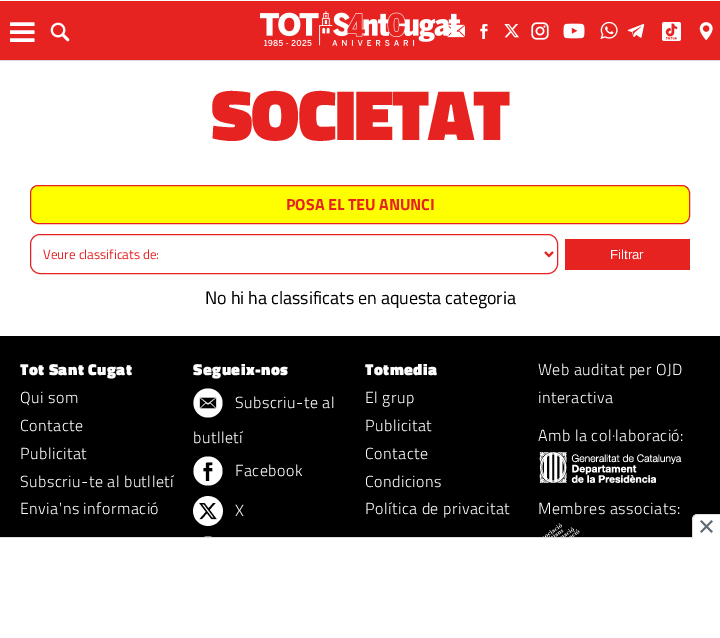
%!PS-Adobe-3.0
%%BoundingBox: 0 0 720 638
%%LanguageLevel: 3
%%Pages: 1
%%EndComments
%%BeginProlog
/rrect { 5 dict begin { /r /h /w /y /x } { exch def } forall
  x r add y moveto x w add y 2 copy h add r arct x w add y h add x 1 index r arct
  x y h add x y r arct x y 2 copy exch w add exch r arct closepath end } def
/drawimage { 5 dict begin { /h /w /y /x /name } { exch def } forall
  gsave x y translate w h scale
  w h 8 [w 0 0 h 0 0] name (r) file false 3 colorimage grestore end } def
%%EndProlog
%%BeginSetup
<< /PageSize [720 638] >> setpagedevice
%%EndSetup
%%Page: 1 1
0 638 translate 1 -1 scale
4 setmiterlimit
1 setgray
0 0 720 638 rectfill
0.902 0.137 0.129 setrgbcolor
0 1 720 59 rectfill
0.851 0.851 0.859 setrgbcolor
0 60 720 1 rectfill
(images/1.raw) 260 11 200 35 drawimage
gsave
newpath 10 22 moveto 10 42 lineto 34.5 42 lineto 34.5 22 lineto closepath clip newpath
1 setgray
3.4 setlinewidth
newpath 10 24 moveto 34.5 24 lineto 10 32 moveto 34.5 32 lineto 10 40 moveto 34.5 40 lineto stroke
grestore
(images/2.raw) 50 22 20 20 drawimage
(images/3.raw) 446 24 19 14 drawimage
(images/4.raw) 480 24 8 15 drawimage
(images/5.raw) 504 24 15 14 drawimage
(images/6.raw) 531 22 18 18 drawimage
(images/7.raw) 563 23 22 16 drawimage
(images/8.raw) 600 22 18 17 drawimage
(images/9.raw) 627 24 18 14 drawimage
(images/10.raw) 662 22 19 19 drawimage
(images/11.raw) 699 22 14 18 drawimage
1 1 0 setrgbcolor
30.5 185.5 659 38 7.5 rrect gsave fill grestore
0.902 0.137 0.129 setrgbcolor
stroke
30.5 234.5 527 39 9.5 rrect stroke
2 setlinewidth
newpath 545 252 moveto 549 256 lineto 553 252 lineto stroke
565 239 125 31 rectfill
0 setgray
0 336 720 201 rectfill
(images/12.raw) 193 388 30 30 drawimage
(images/13.raw) 193 456 30 30 drawimage
(images/14.raw) 193 496 30 30 drawimage
(images/15.raw) 204 536 8 1 drawimage
(images/16.raw) 539 452 143 31 drawimage
(images/17.raw) 542 523 38 14 drawimage
0.867 setgray
0 537 692 1 rectfill
1 setgray
newpath 698 514 moveto 720 514 lineto 720 538 lineto 692 538 lineto 692 520 lineto 692 516.5 694.5 514 698 514 curveto closepath fill
(images/18.raw) 700 520 13 13 drawimage
0.867 setgray
newpath 698 514 moveto 720 514 lineto 720 538 lineto 692 538 lineto 692 520 lineto 692 516.5 694.5 514 698 514 curveto closepath 698 515 moveto 720 515 lineto 720 538 lineto 693 538 lineto 693 520 lineto 693 517 695 515 698 515 curveto closepath eofill
/TitilliumWeb-Black [72 0 0 -72 0 0] selectfont
0.902 0.137 0.129 setrgbcolor
211 140 moveto -1.5 0 (SOCIETAT) ashow
/TitilliumWeb-Bold [16 0 0 -16 0 0] selectfont
286 210 moveto (POSA EL TEU ANUNCI) show
/TitilliumWeb-Regular [13.25 0 0 -13.25 0 0] selectfont
43 259 moveto (Veure classificats de:) show
/LiberationSans-Regular [13.25 0 0 -13.25 0 0] selectfont
1 setgray
610 259 moveto (Filtrar) show
/TitilliumWeb-Regular [18 0 0 -18 0 0] selectfont
0 setgray
205 304 moveto (No hi ha classificats en aquesta categoria) show
/TitilliumWeb-Black [16 0 0 -16 0 0] selectfont
1 setgray
20 375 moveto 0.5 0 (Tot Sant Cugat) ashow
/TitilliumWeb-Light [16 0 0 -16 0 0] selectfont
20 403 moveto 0.5 0 (Qui som) ashow
20 431 moveto 0.5 0 (Contacte) ashow
20 459 moveto 0.5 0 (Publicitat) ashow
20 487 moveto 0.5 0 (Subscriu-te al butlletí) ashow
20 514 moveto 0.5 0 (Envia'ns informació) ashow
/TitilliumWeb-Black [16 0 0 -16 0 0] selectfont
193 375 moveto 0.5 0 (Segueix-nos) ashow
/TitilliumWeb-Light [16 0 0 -16 0 0] selectfont
235 408 moveto 0.5 0 (Subscriu-te al) ashow
193 443 moveto 0.5 0 (butlletí) ashow
235 476 moveto 0.5 0 (Facebook) ashow
235 516 moveto 0.5 0 (X) ashow
/TitilliumWeb-Black [16 0 0 -16 0 0] selectfont
365 375 moveto 0.5 0 (Totmedia) ashow
/TitilliumWeb-Light [16 0 0 -16 0 0] selectfont
365 403 moveto 0.5 0 (El grup) ashow
365 431 moveto 0.5 0 (Publicitat) ashow
365 459 moveto 0.5 0 (Contacte) ashow
365 487 moveto 0.5 0 (Condicions) ashow
365 514 moveto 0.5 0 (Política de privacitat) ashow
538 375 moveto 0.5 0 (Web auditat per OJD) ashow
538 403 moveto 0.5 0 (interactiva) ashow
538 441 moveto 0.5 0 (Amb la col·laboració:) ashow
538 514 moveto 0.5 0 (Membres associats:) ashow
showpage
%%EOF
